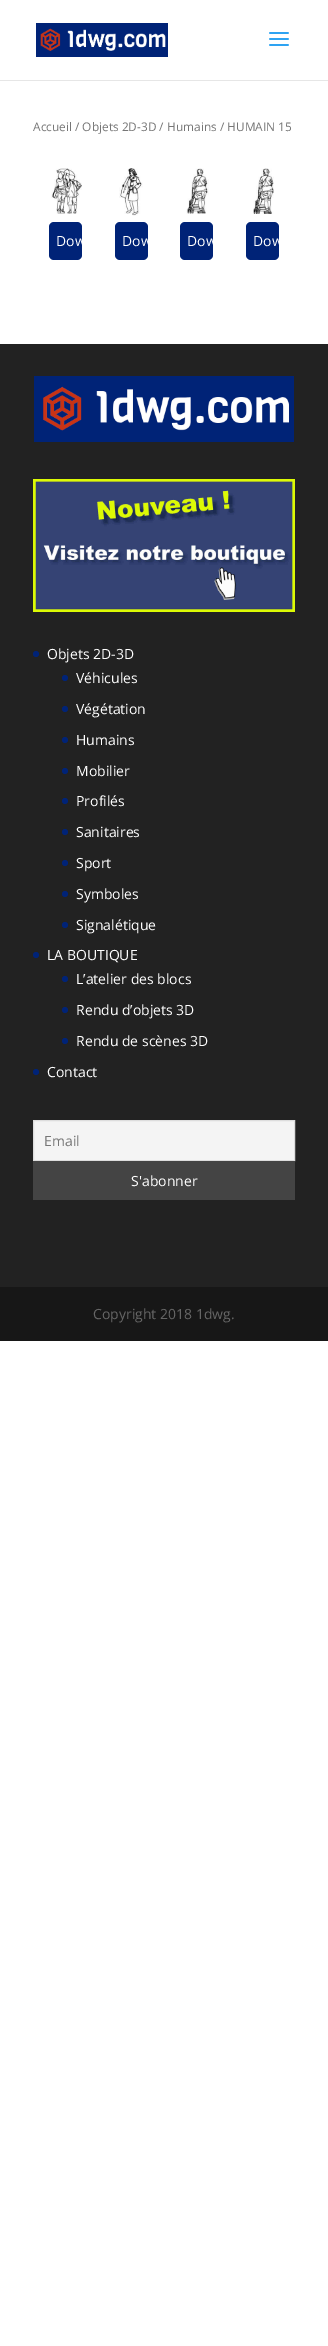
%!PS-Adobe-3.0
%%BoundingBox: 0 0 328 2346
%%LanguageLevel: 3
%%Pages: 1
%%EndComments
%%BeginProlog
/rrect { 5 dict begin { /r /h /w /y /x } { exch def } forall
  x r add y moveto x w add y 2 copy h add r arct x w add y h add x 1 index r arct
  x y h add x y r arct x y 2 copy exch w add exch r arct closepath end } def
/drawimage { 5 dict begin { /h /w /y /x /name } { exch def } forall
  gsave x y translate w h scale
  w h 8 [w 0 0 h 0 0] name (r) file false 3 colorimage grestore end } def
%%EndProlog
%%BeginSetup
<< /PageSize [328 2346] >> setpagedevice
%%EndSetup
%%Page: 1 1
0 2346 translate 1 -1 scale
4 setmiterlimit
1 setgray
0 0 328 2346 rectfill
0.902 setgray
0 80 328 1 rectfill
(images/1.raw) 36 23 132 34 drawimage
(images/2.raw) 269 32 20 14 drawimage
(images/3.raw) 51 168 31 46 drawimage
0 0.137 0.467 setrgbcolor
49 222 33 38 5 rrect fill
(images/4.raw) 119 168 24 48 drawimage
115 222 33 38 5 rrect fill
(images/5.raw) 186 168 23 46 drawimage
180 222 33 38 5 rrect fill
(images/6.raw) 253 168 21 46 drawimage
246 222 33 38 5 rrect fill
0.133 setgray
0 344 328 943 rectfill
(images/7.raw) 34 376 260 66 drawimage
(images/8.raw) 33 479 262 133 drawimage
0 0.137 0.467 setrgbcolor
newpath 36 654 3 0 360 arc closepath fill
newpath 65 678 3 0 360 arc closepath fill
newpath 65 709 3 0 360 arc closepath fill
newpath 65 740 3 0 360 arc closepath fill
newpath 65 771 3 0 360 arc closepath fill
newpath 65 801 3 0 360 arc closepath fill
newpath 65 832 3 0 360 arc closepath fill
newpath 65 863 3 0 360 arc closepath fill
newpath 65 894 3 0 360 arc closepath fill
newpath 65 925 3 0 360 arc closepath fill
newpath 36 955 3 0 360 arc closepath fill
newpath 65 979 3 0 360 arc closepath fill
newpath 65 1010 3 0 360 arc closepath fill
newpath 65 1041 3 0 360 arc closepath fill
newpath 36 1072 3 0 360 arc closepath fill
0.957 setgray
newpath 33.5 1120.5 moveto 294.5 1120.5 lineto 294.5 1160.5 lineto 33.5 1160.5 lineto closepath gsave fill grestore
0.867 setgray
stroke
0.267 setgray
33 1161 262 39 rectfill
0.09 setgray
0 1287 328 54 rectfill
/OpenSans-Regular [11.9 0 0 -11.9 0 0] selectfont
0.463 setgray
33 131 moveto (Accueil / Objets 2D-3D / Humains / HUMAIN 15) show
/OpenSans-Regular [14 0 0 -14 0 0] selectfont
1 setgray
56 246 moveto (Dow) show
122 246 moveto (Dow) show
187 246 moveto (Dow) show
253 246 moveto (Dow) show
47 659 moveto (Objets 2D-3D) show
76 683 moveto (Véhicules) show
76 714 moveto (Végétation) show
76 745 moveto (Humains) show
76 776 moveto (Mobilier) show
76 806 moveto (Profilés) show
76 837 moveto (Sanitaires) show
76 868 moveto (Sport) show
76 899 moveto (Symboles) show
76 930 moveto (Signalétique) show
47 960 moveto (LA BOUTIQUE) show
76 984 moveto (L’atelier des blocs) show
76 1015 moveto (Rendu d’objets 3D) show
76 1046 moveto (Rendu de scènes 3D) show
47 1077 moveto (Contact) show
0.463 setgray
44 1146 moveto (Email) show
1 setgray
131 1186 moveto (S'abonner) show
0.4 setgray
93 1319 moveto (Copyright 2018 1dwg.) show
showpage
%%EOF
